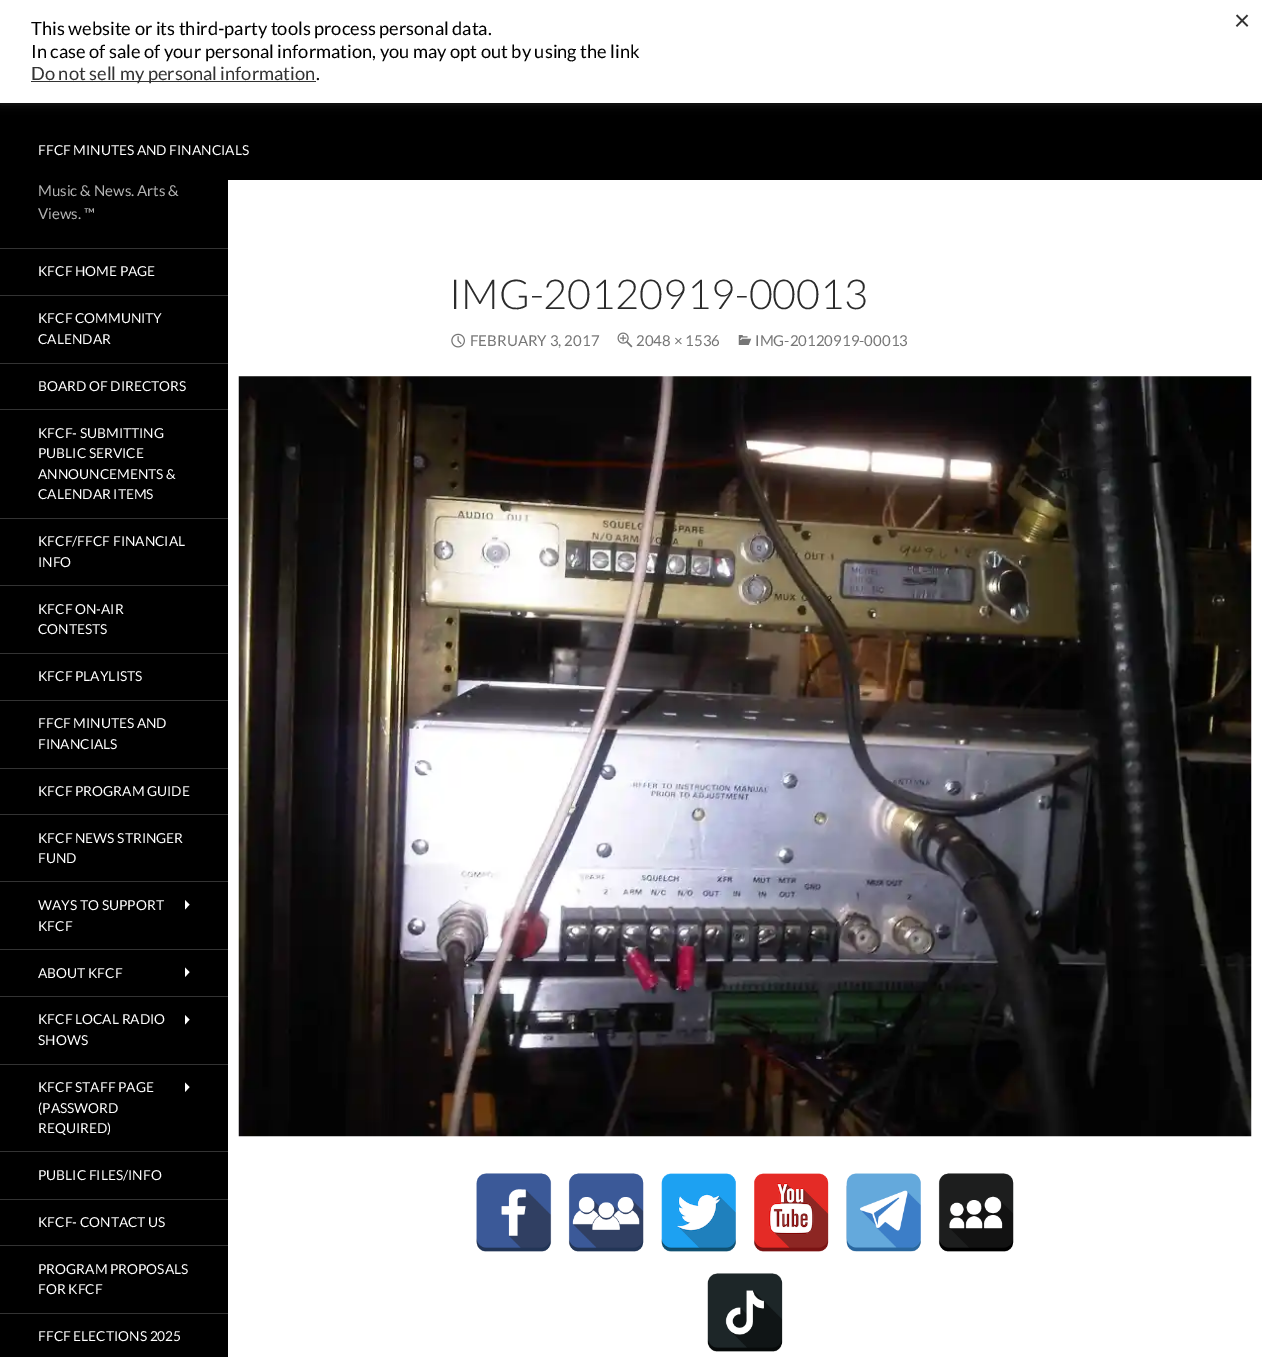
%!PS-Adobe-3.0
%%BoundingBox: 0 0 1262 1357
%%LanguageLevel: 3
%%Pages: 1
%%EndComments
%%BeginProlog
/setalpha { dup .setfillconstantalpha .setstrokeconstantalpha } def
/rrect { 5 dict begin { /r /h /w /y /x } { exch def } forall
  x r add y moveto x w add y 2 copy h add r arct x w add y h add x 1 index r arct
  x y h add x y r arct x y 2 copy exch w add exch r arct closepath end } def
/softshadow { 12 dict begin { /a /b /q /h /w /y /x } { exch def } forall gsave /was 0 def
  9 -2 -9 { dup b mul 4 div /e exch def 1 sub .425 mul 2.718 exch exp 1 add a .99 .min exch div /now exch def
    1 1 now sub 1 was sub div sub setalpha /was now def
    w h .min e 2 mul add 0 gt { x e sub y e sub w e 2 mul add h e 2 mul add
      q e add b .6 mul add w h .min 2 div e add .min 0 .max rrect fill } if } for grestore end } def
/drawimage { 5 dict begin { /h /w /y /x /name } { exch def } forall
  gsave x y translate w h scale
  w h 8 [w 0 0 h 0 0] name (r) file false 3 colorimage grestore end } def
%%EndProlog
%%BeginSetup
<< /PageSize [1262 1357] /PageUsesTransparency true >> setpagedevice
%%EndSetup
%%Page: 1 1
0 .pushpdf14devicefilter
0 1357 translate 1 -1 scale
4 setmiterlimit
1 setgray
0 0 1262 1357 rectfill
0 setgray
0 103 1262 77 rectfill
0.675 0.671 0.671 setrgbcolor
0 -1 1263 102 0 6 0.3 softshadow
1 setgray
0 0 1262 103 rectfill
0.2 setgray
31 81 285 1 rectfill
0 setgray
0 180 228 1177 rectfill
0.2 setgray
0 248 228 1 rectfill
0 295 228 1 rectfill
0 363 228 1 rectfill
0 409 228 1 rectfill
0 518 228 1 rectfill
0 585 228 1 rectfill
0 653 228 1 rectfill
0 700 228 1 rectfill
0 768 228 1 rectfill
0 814 228 1 rectfill
0 881 228 1 rectfill
1 setgray
newpath 185 909.5 moveto 185 900 lineto 189.5 904.5 lineto closepath fill
0.2 setgray
0 949 228 1 rectfill
1 setgray
newpath 185 977 moveto 185 967.5 lineto 189.5 972 lineto closepath fill
0.2 setgray
0 996 228 1 rectfill
1 setgray
newpath 185 1024.5 moveto 185 1015 lineto 189.5 1019.5 lineto closepath fill
0.2 setgray
0 1064 228 1 rectfill
1 setgray
newpath 185 1092 moveto 185 1082.5 lineto 189.5 1087 lineto closepath fill
0.2 setgray
0 1151 228 1 rectfill
0 1199 228 1 rectfill
0 1245 228 1 rectfill
0 1313 228 1 rectfill
(images/1.raw) 451 333 14 15 drawimage
(images/2.raw) 617 332 16 16 drawimage
(images/3.raw) 738 335 14 10 drawimage
(images/4.raw) 238 376 1014 761 drawimage
(images/5.raw) 476 1173 76 79 drawimage
(images/6.raw) 568 1173 76 79 drawimage
(images/7.raw) 661 1173 75 79 drawimage
(images/8.raw) 754 1173 75 79 drawimage
(images/9.raw) 846 1173 75 79 drawimage
(images/10.raw) 938 1173 76 79 drawimage
(images/11.raw) 707 1273 76 79 drawimage
/Lato-Regular [18.3 0 0 -18.3 0 0] selectfont
0 setgray
31 35 moveto (This website or its third-party tools process personal data.) show
31 58 moveto (In case of sale of your personal information, you may opt out by using the link) show
0.2 setgray
31 80 moveto (Do not sell my personal information) show
0 setgray
316 80 moveto (.) show
/Lato-Regular [28 0 0 -28 0 0] selectfont
0.2 setgray
1234 30 moveto (×) show
/Lato-Regular [13.75 0 0 -13.75 0 0] selectfont
1 setgray
38 155 moveto (FFCF MINUTES AND FINANCIALS) show
/Lato-Regular [15 0 0 -15 0 0] selectfont
0.702 setgray
38 196 moveto (Music & News. Arts &) show
38 219 moveto (Views. ™) show
/Lato-Regular [13.75 0 0 -13.75 0 0] selectfont
1 setgray
38 276 moveto (KFCF HOME PAGE) show
38 323 moveto (KFCF COMMUNITY) show
38 344 moveto (CALENDAR) show
38 391 moveto (BOARD OF DIRECTORS) show
38 438 moveto (KFCF- SUBMITTING) show
38 458 moveto (PUBLIC SERVICE) show
38 479 moveto (ANNOUNCEMENTS &) show
38 499 moveto (CALENDAR ITEMS) show
38 546 moveto (KFCF/FFCF FINANCIAL) show
38 567 moveto (INFO) show
38 614 moveto (KFCF ON-AIR) show
38 634 moveto (CONTESTS) show
38 681 moveto (KFCF PLAYLISTS) show
38 728 moveto (FFCF MINUTES AND) show
38 749 moveto (FINANCIALS) show
38 796 moveto (KFCF PROGRAM GUIDE) show
38 843 moveto (KFCF NEWS STRINGER) show
38 863 moveto (FUND) show
38 910 moveto (WAYS TO SUPPORT) show
38 931 moveto (KFCF) show
38 978 moveto (ABOUT KFCF) show
38 1024 moveto (KFCF LOCAL RADIO) show
38 1045 moveto (SHOWS) show
38 1092 moveto (KFCF STAFF PAGE) show
38 1113 moveto (\(PASSWORD) show
38 1133 moveto (REQUIRED\)) show
38 1180 moveto (PUBLIC FILES/INFO) show
38 1227 moveto (KFCF- CONTACT US) show
38 1274 moveto (PROGRAM PROPOSALS) show
38 1294 moveto (FOR KFCF) show
38 1341 moveto (FFCF ELECTIONS 2025) show
/Lato-Light [41.25 0 0 -41.25 0 0] selectfont
0.169 setgray
449 309 moveto (IMG-20120919-00013) show
/Lato-Regular [15 0 0 -15 0 0] selectfont
0.463 setgray
470 346 moveto (FEBRUARY 3, 2017) show
636 346 moveto (2048 × 1536) show
755 346 moveto (IMG-20120919-00013) show
.poppdf14devicefilter showpage
%%EOF
